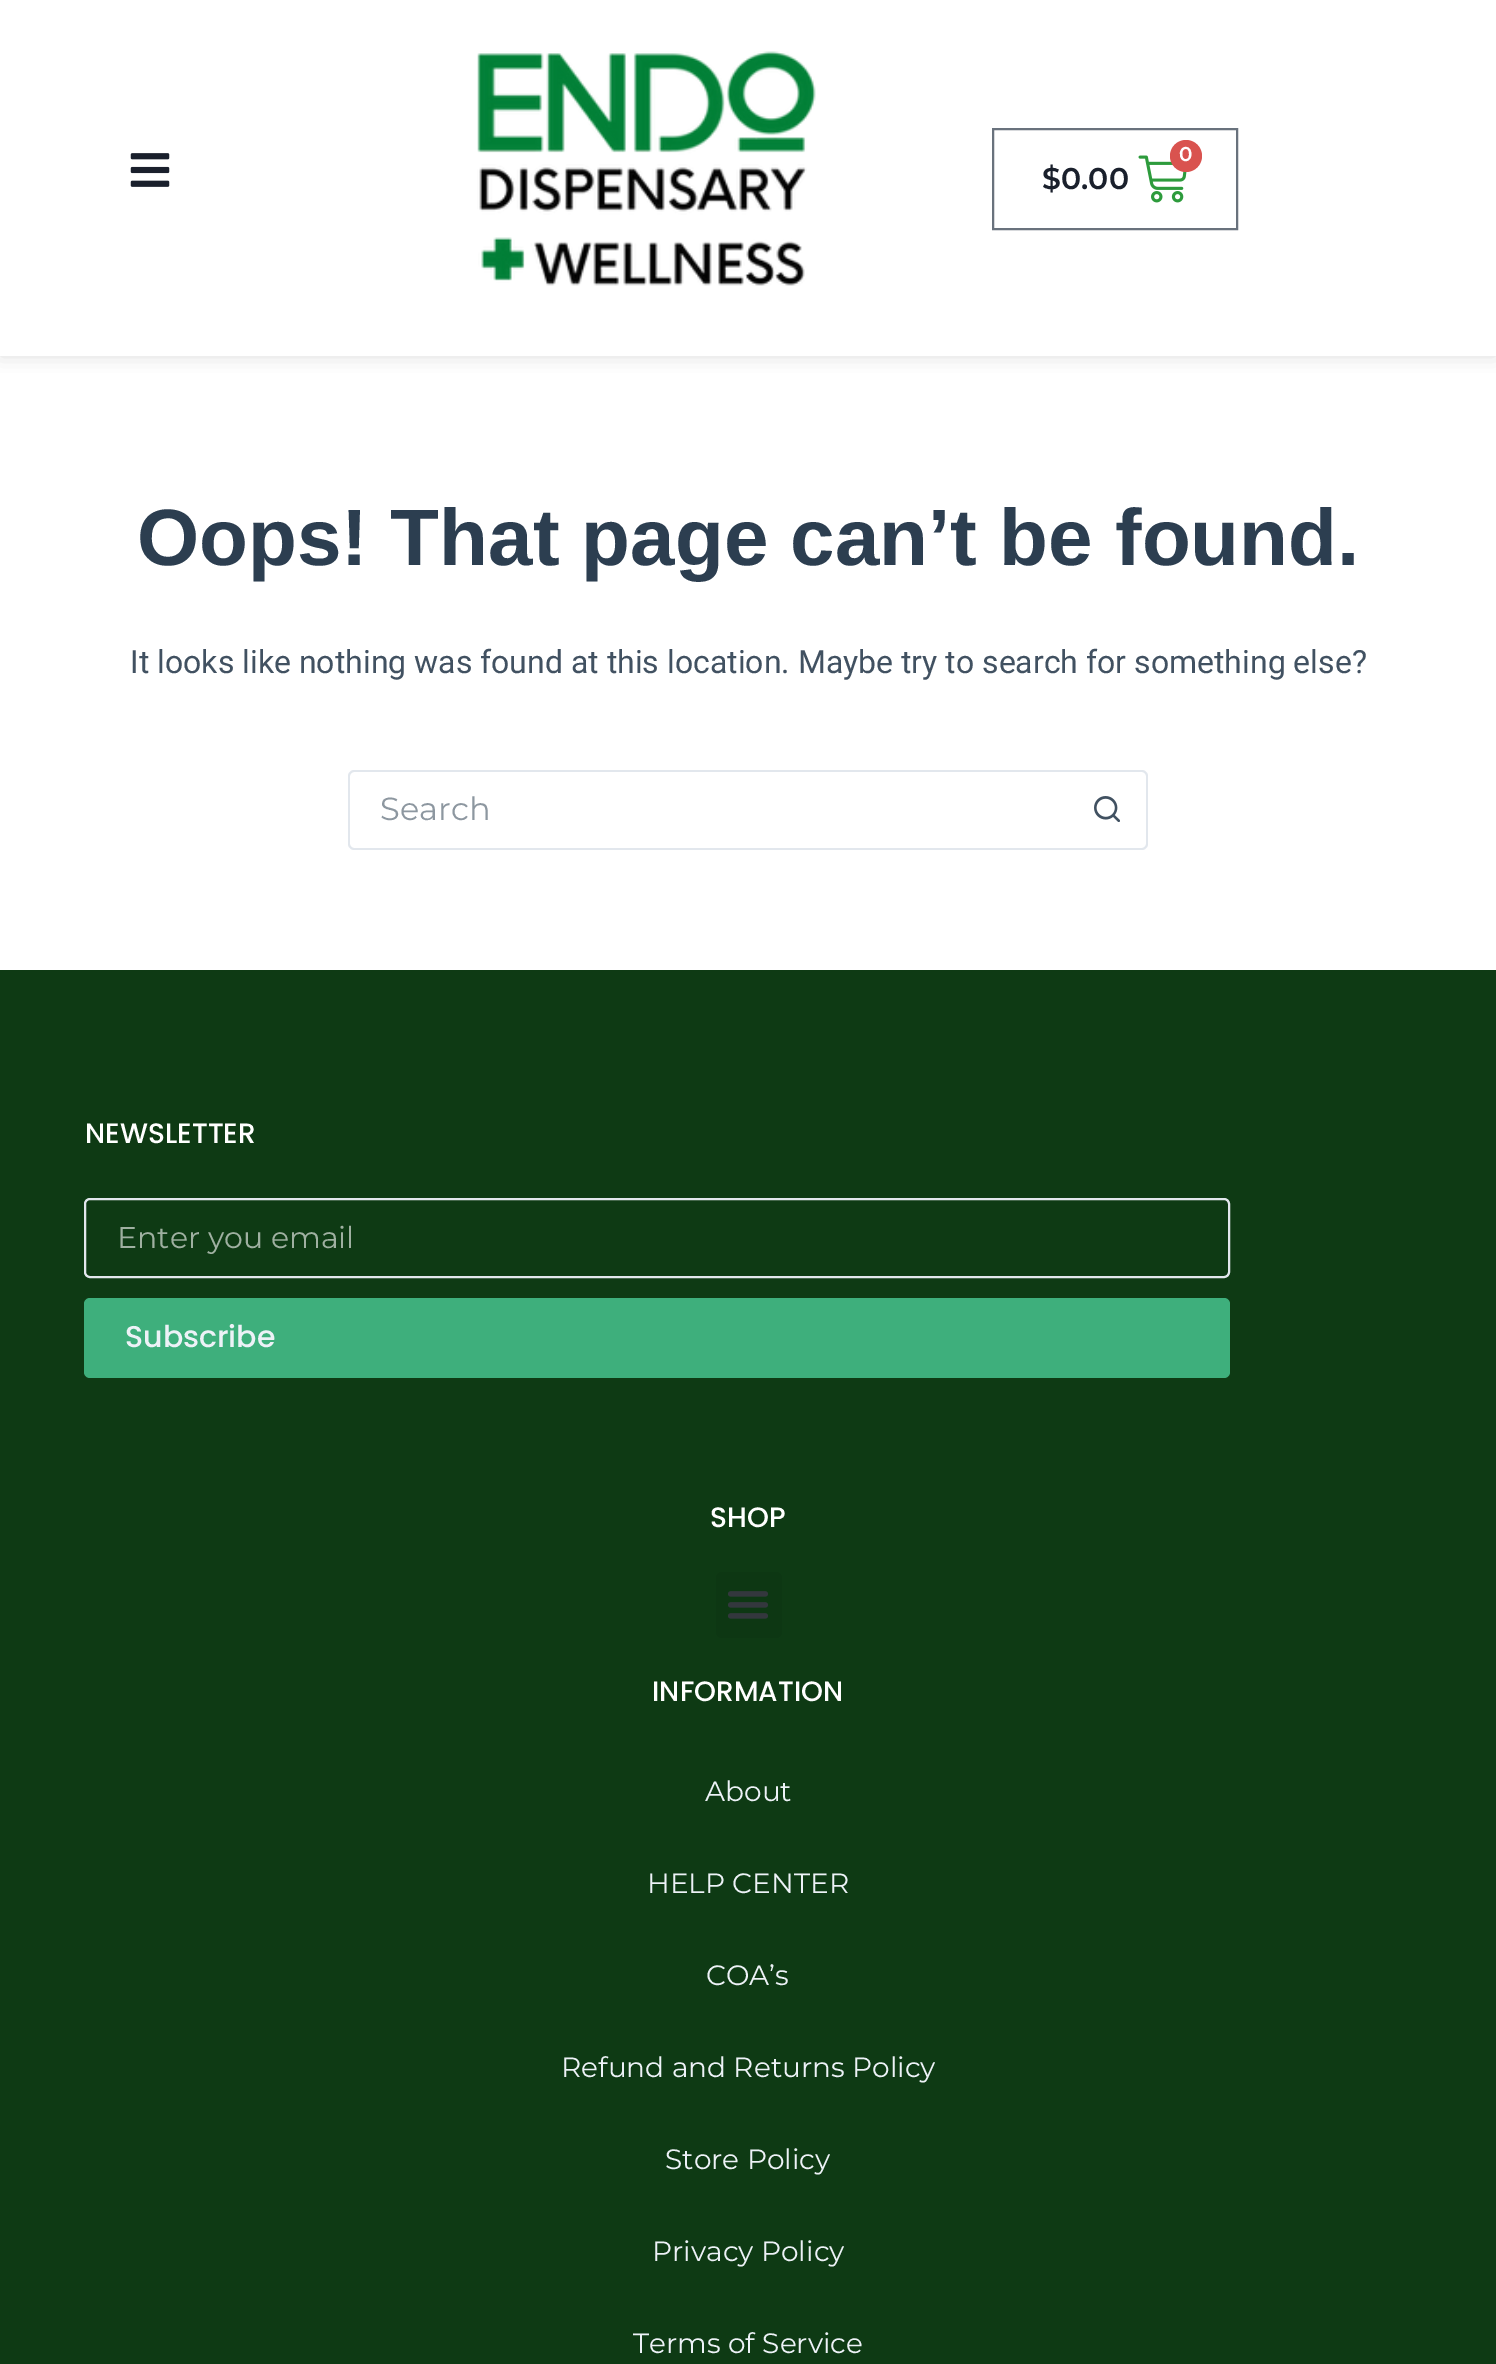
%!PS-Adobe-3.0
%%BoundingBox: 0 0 1496 2364
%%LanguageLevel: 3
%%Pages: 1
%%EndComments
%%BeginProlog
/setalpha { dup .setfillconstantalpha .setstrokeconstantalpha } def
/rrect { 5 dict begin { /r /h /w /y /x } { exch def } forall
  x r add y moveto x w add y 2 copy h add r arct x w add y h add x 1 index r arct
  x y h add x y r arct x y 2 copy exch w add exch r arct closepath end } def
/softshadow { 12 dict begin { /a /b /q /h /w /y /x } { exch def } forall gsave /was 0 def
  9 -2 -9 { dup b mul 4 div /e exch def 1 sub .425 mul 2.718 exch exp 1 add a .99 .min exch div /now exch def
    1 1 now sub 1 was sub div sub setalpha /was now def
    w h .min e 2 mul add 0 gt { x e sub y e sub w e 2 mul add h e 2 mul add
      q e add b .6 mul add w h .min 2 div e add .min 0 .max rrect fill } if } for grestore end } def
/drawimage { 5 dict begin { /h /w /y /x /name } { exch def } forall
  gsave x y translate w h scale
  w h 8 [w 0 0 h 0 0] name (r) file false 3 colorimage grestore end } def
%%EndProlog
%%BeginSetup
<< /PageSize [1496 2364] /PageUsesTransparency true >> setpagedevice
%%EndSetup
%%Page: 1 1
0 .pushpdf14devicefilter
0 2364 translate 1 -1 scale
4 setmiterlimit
1 setgray
0 0 1496 2364 rectfill
gsave
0 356 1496 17 rectclip
0.722 setgray
0 0 1496 356 0 10 0.5 softshadow
grestore
(images/1.raw) 130 153 40 34 drawimage
(images/2.raw) 477 51 339 235 drawimage
0.412 0.447 0.49 setrgbcolor
2 setlinewidth
993 129 244 100 rectstroke
(images/3.raw) 1138 155 49 48 drawimage
0.851 0.325 0.31 setrgbcolor
newpath 1186 156 16 0 360 arc closepath fill
0.886 0.906 0.929 setrgbcolor
newpath 354 770 moveto 1068 770 lineto 1068 850 lineto 354 850 lineto 351 850 348 847 348 844 curveto 348 776 lineto 348 773 351 770 354 770 curveto closepath 354 772 moveto 1068 772 lineto 1068 848 lineto 354 848 lineto 352 848 350 846 350 844 curveto 350 776 lineto 350 774 352 772 354 772 curveto closepath eofill
newpath 1068 770 moveto 1142 770 lineto 1145 770 1148 773 1148 776 curveto 1148 844 lineto 1148 847 1145 850 1142 850 curveto 1068 850 lineto closepath 1068 772 moveto 1142 772 lineto 1144 772 1146 774 1146 776 curveto 1146 844 lineto 1146 846 1144 848 1142 848 curveto 1068 848 lineto closepath eofill
(images/4.raw) 1094 796 26 26 drawimage
0.055 0.227 0.078 setrgbcolor
0 970 1496 1394 rectfill
0.886 0.906 0.929 setrgbcolor
85 1199 1144 78 5 rrect stroke
0.243 0.686 0.486 setrgbcolor
84 1298 1146 80 6 rrect fill
0.051 0.216 0.075 setrgbcolor
716 1572 66 66 6 rrect fill
(images/5.raw) 728 1591 40 28 drawimage
/Montserrat-SemiBold [20 0 0 -20 0 0] selectfont
1 setgray
1179 161 moveto (0) show
/Montserrat-SemiBold [30 0 0 -30 0 0] selectfont
0.102 0.125 0.173 setrgbcolor
1042 189 moveto ($0.00) show
/LiberationSans-Bold [80 0 0 -80 0 0] selectfont
0.173 0.243 0.314 setrgbcolor
137 565 moveto (Oops! That page can’t be found.) show
/Roboto-Regular [32 0 0 -32 0 0] selectfont
0.255 0.318 0.38 setrgbcolor
130 673 moveto (It looks like nothing was found at this location. Maybe try to search for something else?) show
/Montserrat-Regular [32 0 0 -32 0 0] selectfont
0.553 0.592 0.627 setrgbcolor
380 820 moveto (Search) show
/Poppins-Medium [28 0 0 -28 0 0] selectfont
1 setgray
85 1143 moveto (NEWSLETTER) show
/Montserrat-Regular [30 0 0 -30 0 0] selectfont
0.624 0.69 0.631 setrgbcolor
117 1248 moveto (Enter you email) show
/Poppins-Medium [30 0 0 -30 0 0] selectfont
0.929 0.949 0.969 setrgbcolor
125 1347 moveto (Subscribe) show
/Poppins-Medium [28 0 0 -28 0 0] selectfont
1 setgray
710 1527 moveto (SHOP) show
652 1701 moveto (INFORMATION) show
/Montserrat-Regular [28 0 0 -28 0 0] selectfont
0.929 0.949 0.969 setrgbcolor
705 1801 moveto (About) show
647 1893 moveto (HELP CENTER) show
706 1985 moveto (COA’s) show
561 2077 moveto (Refund and Returns Policy) show
665 2169 moveto (Store Policy) show
652 2261 moveto (Privacy Policy) show
633 2353 moveto (Terms of Service) show
.poppdf14devicefilter showpage
%%EOF
